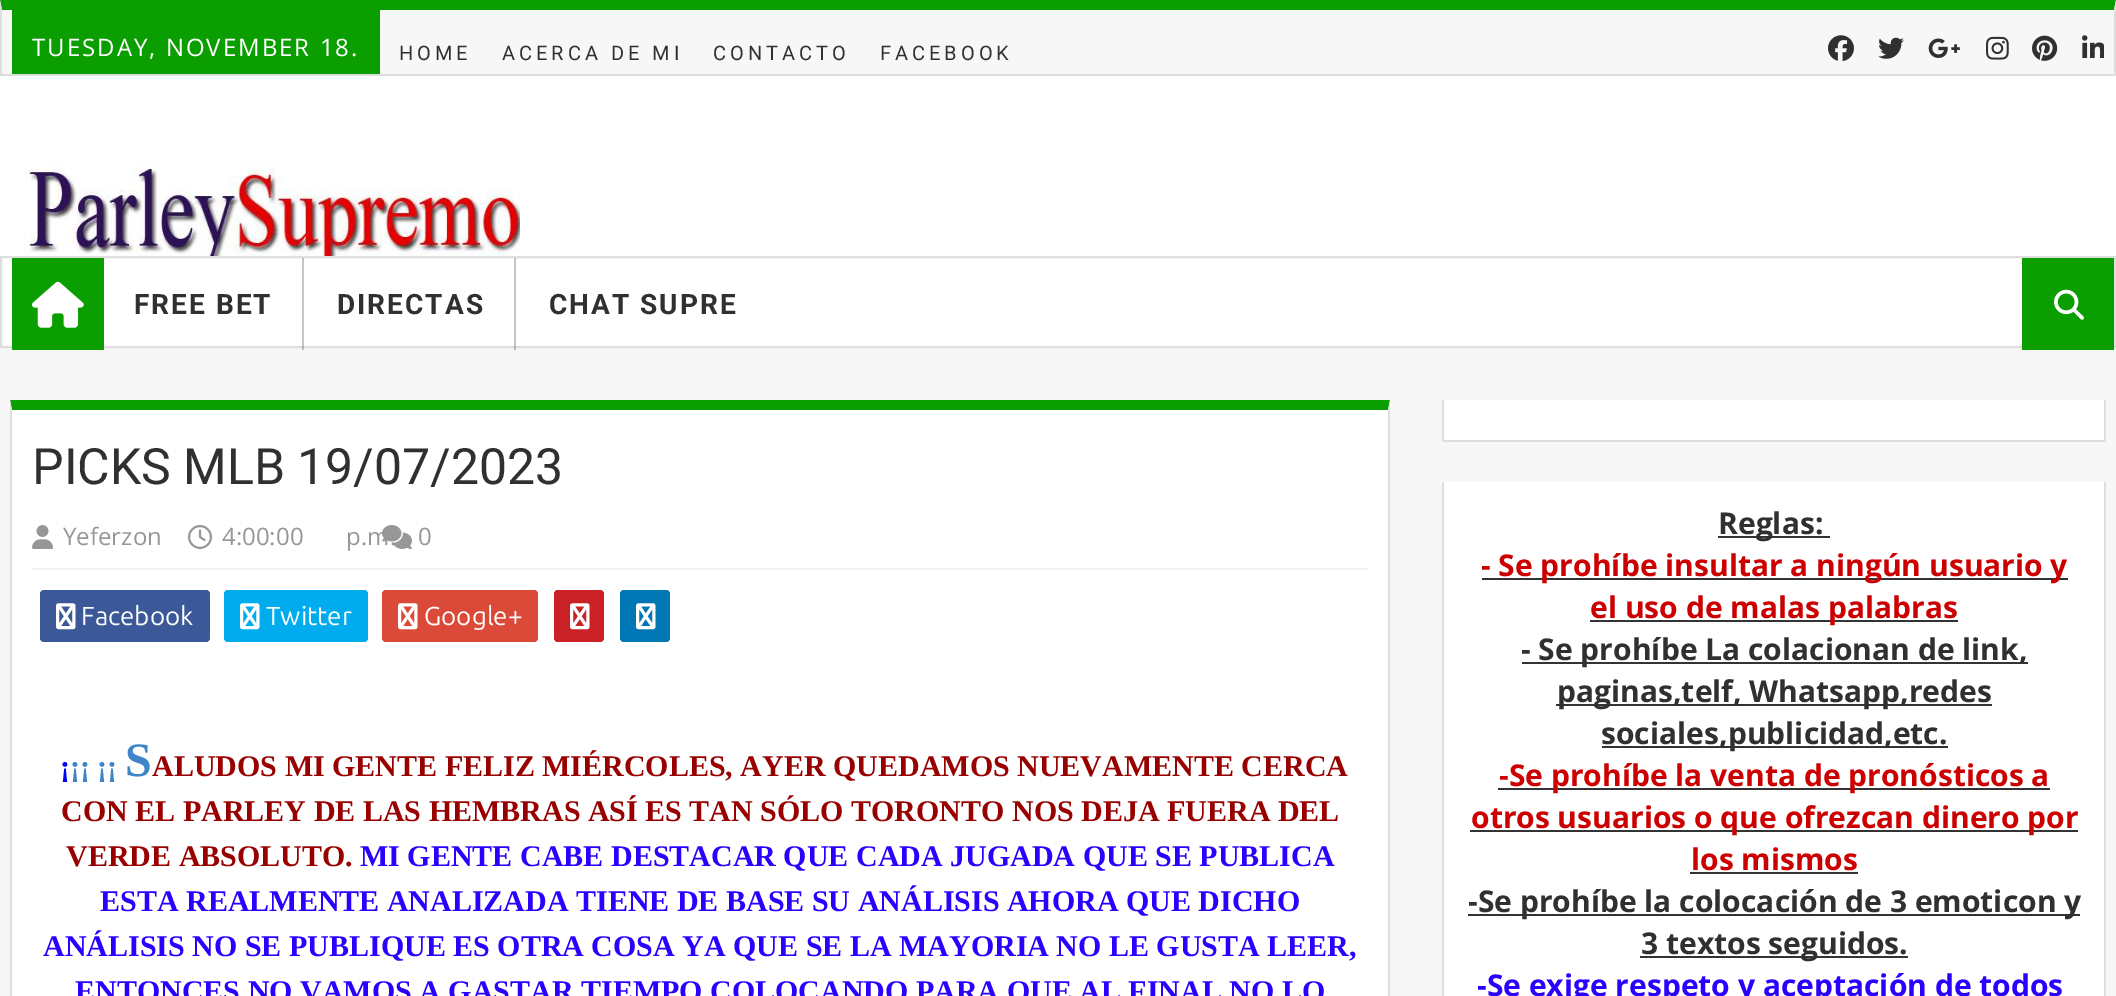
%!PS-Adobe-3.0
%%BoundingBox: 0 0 2116 996
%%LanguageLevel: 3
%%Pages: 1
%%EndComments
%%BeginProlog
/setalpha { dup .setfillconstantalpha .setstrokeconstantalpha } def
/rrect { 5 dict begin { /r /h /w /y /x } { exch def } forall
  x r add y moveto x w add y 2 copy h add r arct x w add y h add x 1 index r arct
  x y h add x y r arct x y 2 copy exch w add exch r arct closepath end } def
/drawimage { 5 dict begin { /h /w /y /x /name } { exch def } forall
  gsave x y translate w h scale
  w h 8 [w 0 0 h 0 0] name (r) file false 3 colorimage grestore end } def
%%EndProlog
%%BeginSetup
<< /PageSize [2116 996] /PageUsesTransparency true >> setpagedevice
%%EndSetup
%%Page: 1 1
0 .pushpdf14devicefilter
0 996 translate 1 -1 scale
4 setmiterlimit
0.969 setgray
0 0 2116 996 rectfill
0.039 0.62 0.004 setrgbcolor
newpath 0 0 moveto 2116 0 lineto 2114 10 lineto 2 10 lineto closepath fill
0.871 setgray
newpath 2116 0 moveto 2116 76 lineto 2114 74 lineto 2114 10 lineto closepath fill
0 74 2116 2 rectfill
newpath 0 76 moveto 0 0 lineto 2 10 lineto 2 74 lineto closepath fill
0.039 0.62 0.004 setrgbcolor
12 10 368 64 rectfill
(images/1.raw) 1828 35 26 27 drawimage
(images/2.raw) 1878 37 26 22 drawimage
(images/3.raw) 1928 38 32 20 drawimage
(images/4.raw) 1986 36 23 24 drawimage
(images/5.raw) 2032 35 26 26 drawimage
(images/6.raw) 2082 35 22 23 drawimage
1 setgray
0 76 2116 180 rectfill
(images/7.raw) 23 162 497 94 drawimage
2 258 2020 88 rectfill
0.871 setgray
2 setlinewidth
1 257 2114 90 rectstroke
0.039 0.62 0.004 setrgbcolor
12 258 92 92 rectfill
(images/8.raw) 32 281 52 47 drawimage
0.22 setalpha
0 setgray
302 258 2 92 rectfill
514 258 2 92 rectfill
1 setalpha
0.039 0.62 0.004 setrgbcolor
2022 258 92 92 rectfill
(images/9.raw) 2054 289 30 31 drawimage
1 setgray
12 410 1376 586 rectfill
0.039 0.62 0.004 setrgbcolor
newpath 10 400 moveto 1390 400 lineto 1388 410 lineto 12 410 lineto closepath fill
0.871 setgray
newpath 1390 400 moveto 1390 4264 lineto 1388 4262 lineto 1388 410 lineto closepath fill
newpath 10 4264 moveto 10 400 lineto 12 410 lineto 12 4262 lineto closepath fill
0.949 setgray
32 568 1336 2 rectfill
(images/10.raw) 32 525 21 24 drawimage
(images/11.raw) 188 525 24 24 drawimage
(images/12.raw) 382 525 30 24 drawimage
0.231 0.349 0.596 setrgbcolor
40 590 170 52 4 rrect fill
(images/13.raw) 56 603 20 27 drawimage
0 0.675 0.933 setrgbcolor
224 590 144 52 4 rrect fill
(images/14.raw) 240 603 20 27 drawimage
0.859 0.29 0.224 setrgbcolor
382 590 156 52 4 rrect fill
(images/15.raw) 398 603 20 27 drawimage
0.792 0.129 0.153 setrgbcolor
554 590 50 52 4 rrect fill
(images/16.raw) 570 603 20 27 drawimage
0 0.467 0.71 setrgbcolor
620 590 50 52 4 rrect fill
(images/17.raw) 636 603 20 27 drawimage
1 setgray
1444 400 660 40 rectfill
0.871 setgray
2104 400 2 42 rectfill
1442 440 664 2 rectfill
1442 400 2 42 rectfill
1 setgray
1444 482 660 514 rectfill
0.871 setgray
2104 482 2 514 rectfill
1442 482 2 514 rectfill
0.2 setgray
1718 536 112 2 rectfill
1482 578 586 2 rectfill
1590 620 368 2 rectfill
1522 662 506 2 rectfill
1556 704 436 2 rectfill
1602 746 346 2 rectfill
1498 788 552 2 rectfill
1470 830 608 2 rectfill
1690 872 168 2 rectfill
1468 914 612 2 rectfill
1640 956 268 2 rectfill
/OpenSans-Regular [24 0 0 -24 0 0] selectfont
1 setgray
32 56 moveto 2 0 (TUESDAY, NOVEMBER 18.) ashow
/Roboto-Regular [20 0 0 -20 0 0] selectfont
0.188 setgray
399 60 moveto 4 0 (HOME) ashow
502 60 moveto 4 0 (ACERCA DE MI) ashow
713 60 moveto 4 0 (CONTACTO) ashow
880 60 moveto 4 0 (FACEBOOK) ashow
/Roboto-Bold [28 0 0 -28 0 0] selectfont
134 314 moveto 2 0 (FREE BET) ashow
337 314 moveto 2 0 (DIRECTAS) ashow
549 314 moveto 2 0 (CHAT SUPRE) ashow
/Roboto-Regular [50 0 0 -50 0 0] selectfont
32 484 moveto (PICKS MLB 19/07/2023) show
/OpenSans-Regular [24 0 0 -24 0 0] selectfont
0.592 setgray
63 545 moveto (Yeferzon) show
222 545 moveto (4:00:00 p.m.) show
418 545 moveto (0) show
/Ubuntu-Regular [26 0 0 -26 0 0] selectfont
1 setgray
81 625 moveto (Facebook) show
266 625 moveto (Twitter) show
424 625 moveto (Google+) show
/LiberationSerif-Bold [30 0 0 -30 0 0] selectfont
0 0 1 setrgbcolor
60 776 moveto (¡) show
0.239 0.522 0.776 setrgbcolor
70 776 moveto (¡¡ ¡¡) show
/LiberationSerif-Bold [48 0 0 -48 0 0] selectfont
125 776 moveto (S) show
/LiberationSerif-Bold [30 0 0 -30 0 0] selectfont
0.6 0 0 setrgbcolor
152 776 moveto (ALUDOS MI GENTE FELIZ MIÉRCOLES, AYER QUEDAMOS NUEVAMENTE CERCA) show
61 821 moveto (CON EL PARLEY DE LAS HEMBRAS ASÍ ES TAN SÓLO TORONTO NOS DEJA FUERA DEL) show
66 866 moveto (VERDE ABSOLUTO.) show
0.169 0 0.996 setrgbcolor
360 866 moveto (MI GENTE CABE DESTACAR QUE CADA JUGADA QUE SE PUBLICA) show
100 911 moveto (ESTA REALMENTE ANALIZADA TIENE DE BASE SU ANÁLISIS AHORA QUE DICHO) show
43 956 moveto (ANÁLISIS NO SE PUBLIQUE ES OTRA COSA YA QUE SE LA MAYORIA NO LE GUSTA LEER,) show
75 1001 moveto (ENTONCES NO VAMOS A GASTAR TIEMPO COLOCANDO PARA QUE AL FINAL NO LO) show
/OpenSans-Bold [30 0 0 -30 0 0] selectfont
0.188 setgray
1718 534 moveto (Reglas:) show
0.8 0 0 setrgbcolor
1481 576 moveto (- Se prohíbe insultar a ningún usuario y) show
1590 618 moveto (el uso de malas palabras) show
0.188 setgray
1521 660 moveto (- Se prohíbe La colacionan de link,) show
1557 702 moveto (paginas,telf, Whatsapp,redes) show
1601 744 moveto (sociales,publicidad,etc.) show
0.8 0 0 setrgbcolor
1499 786 moveto (-Se prohíbe la venta de pronósticos a) show
1471 828 moveto (otros usuarios o que ofrezcan dinero por) show
1691 870 moveto (los mismos) show
0.188 setgray
1468 912 moveto (-Se prohíbe la colocación de 3 emoticon y) show
1641 954 moveto (3 textos seguidos.) show
0.169 0 0.996 setrgbcolor
1477 996 moveto (-Se exige respeto y aceptación de todos) show
.poppdf14devicefilter showpage
%%EOF
